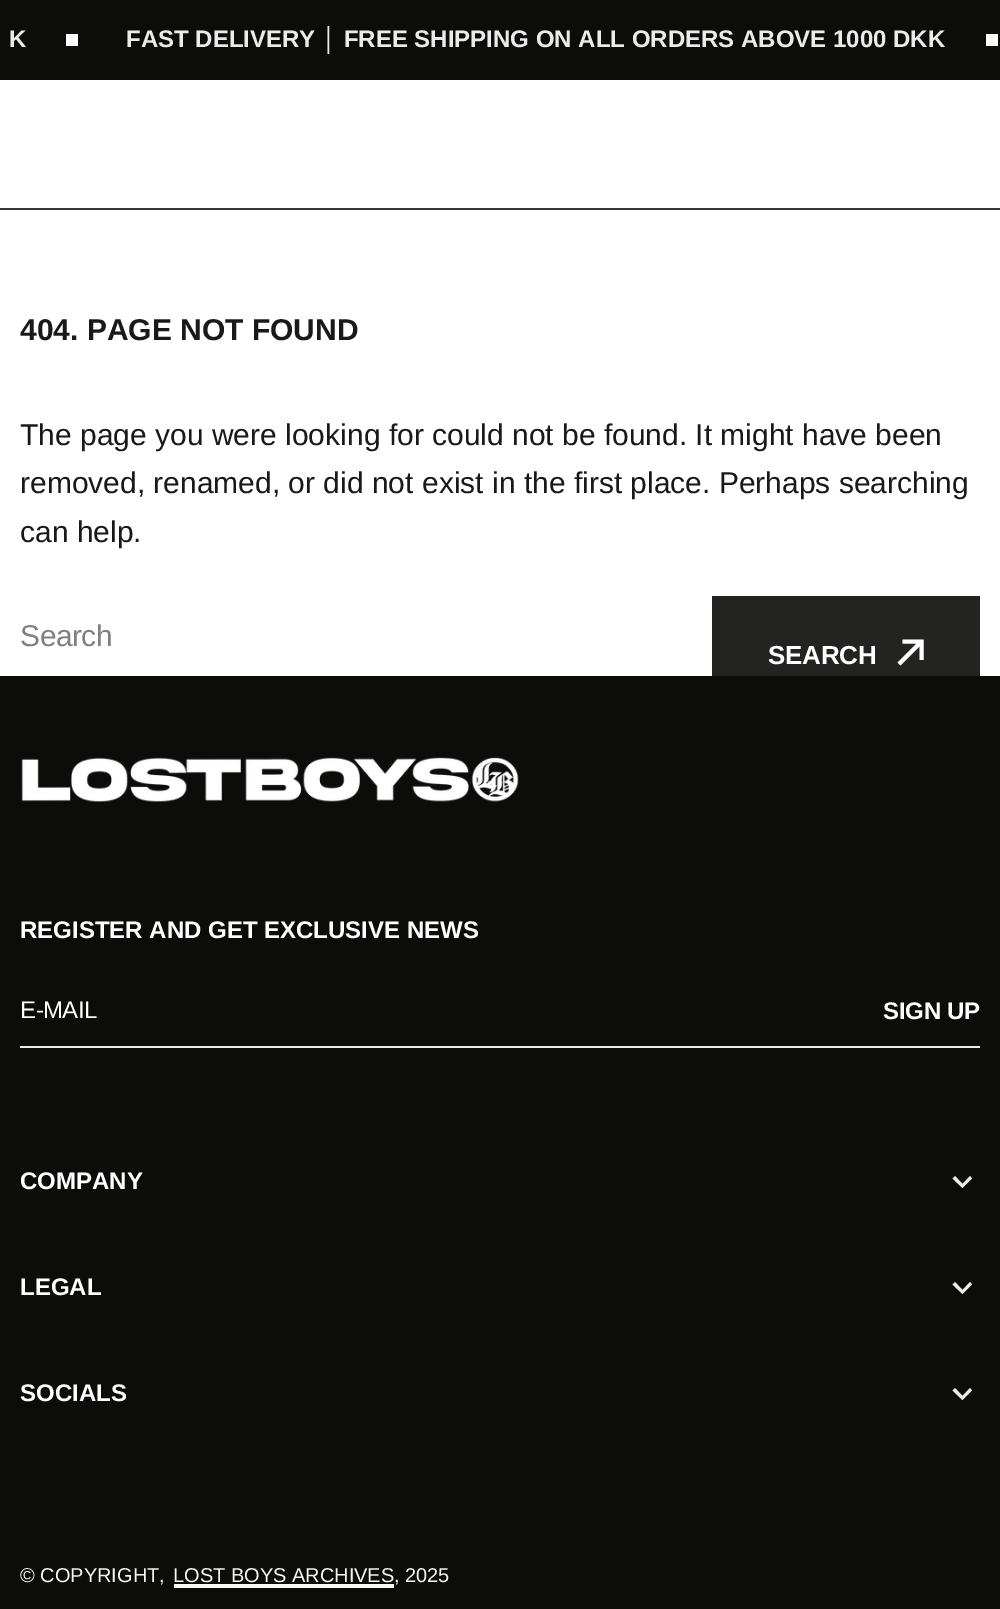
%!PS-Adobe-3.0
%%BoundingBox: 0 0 1000 1609
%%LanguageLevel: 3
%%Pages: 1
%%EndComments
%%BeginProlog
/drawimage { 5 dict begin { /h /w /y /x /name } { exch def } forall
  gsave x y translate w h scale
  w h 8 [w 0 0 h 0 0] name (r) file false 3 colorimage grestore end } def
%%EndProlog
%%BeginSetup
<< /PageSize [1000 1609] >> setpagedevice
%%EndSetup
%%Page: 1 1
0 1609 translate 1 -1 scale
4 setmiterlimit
1 setgray
0 0 1000 1609 rectfill
0.047 0.047 0.043 setrgbcolor
0 0 1000 80 rectfill
1 setgray
66 34 12 12 rectfill
986 34 12 12 rectfill
0.216 0.216 0.212 setrgbcolor
0 208 1000 2 rectfill
0.137 0.137 0.133 setrgbcolor
712 596 268 80 rectfill
1 setgray
4 setlinewidth
2 setlinecap
newpath 900.5 662.5 moveto 920.5 642.5 lineto 904.5 641.5 moveto 921.5 641.5 lineto 921.5 658 lineto stroke
0.047 0.047 0.043 setrgbcolor
0 676 1000 933 rectfill
(images/1.raw) 21 757 498 45 drawimage
0.922 setgray
20 1046 960 2 rectfill
newpath 962.5 1184 moveto 970 1176 lineto 972 1178.5 lineto 962.5 1188 lineto 952.5 1178.5 lineto 955 1176 lineto closepath fill
newpath 962.5 1290 moveto 970 1282 lineto 972 1284.5 lineto 962.5 1294 lineto 952.5 1284.5 lineto 955 1282 lineto closepath fill
newpath 962.5 1396 moveto 970 1388 lineto 972 1390.5 lineto 962.5 1400 lineto 952.5 1390.5 lineto 955 1388 lineto closepath fill
0.973 setgray
174 1584 220 4 rectfill
/LiberationSans-Bold [24 0 0 -24 0 0] selectfont
0.922 setgray
9 47 moveto (K) show
gsave
0 26 1000 28 rectclip
126 47 moveto (FAST DELIVERY │ FREE SHIPPING ON ALL ORDERS ABOVE 1000 DKK) show
grestore
/LiberationSans-Bold [30 0 0 -30 0 0] selectfont
0.098 setgray
20 340 moveto (404. PAGE NOT FOUND) show
/LiberationSans-Regular [30 0 0 -30 0 0] selectfont
20 445 moveto (The page you were looking for could not be found. It might have been) show
20 493 moveto (removed, renamed, or did not exist in the first place. Perhaps searching) show
20 542 moveto (can help.) show
0.502 setgray
20 646 moveto -0.5 0 (Search) ashow
/LiberationSans-Bold [26 0 0 -26 0 0] selectfont
1 setgray
768 664 moveto -0.25 0 (SEARCH) ashow
/LiberationSans-Bold [24 0 0 -24 0 0] selectfont
20 938 moveto (REGISTER AND GET EXCLUSIVE NEWS) show
/LiberationSans-Regular [24 0 0 -24 0 0] selectfont
20 1018 moveto -0.5 0 (E-MAIL) ashow
/LiberationSans-Bold [24 0 0 -24 0 0] selectfont
883 1019 moveto -0.25 0 (SIGN UP) ashow
20 1189 moveto (COMPANY) show
20 1295 moveto (LEGAL) show
20 1401 moveto (SOCIALS) show
/LiberationSans-Regular [20 0 0 -20 0 0] selectfont
0.973 setgray
20 1582 moveto (© COPYRIGHT,) show
173 1582 moveto (LOST BOYS ARCHIVES) show
394 1582 moveto (, 2025) show
showpage
%%EOF
